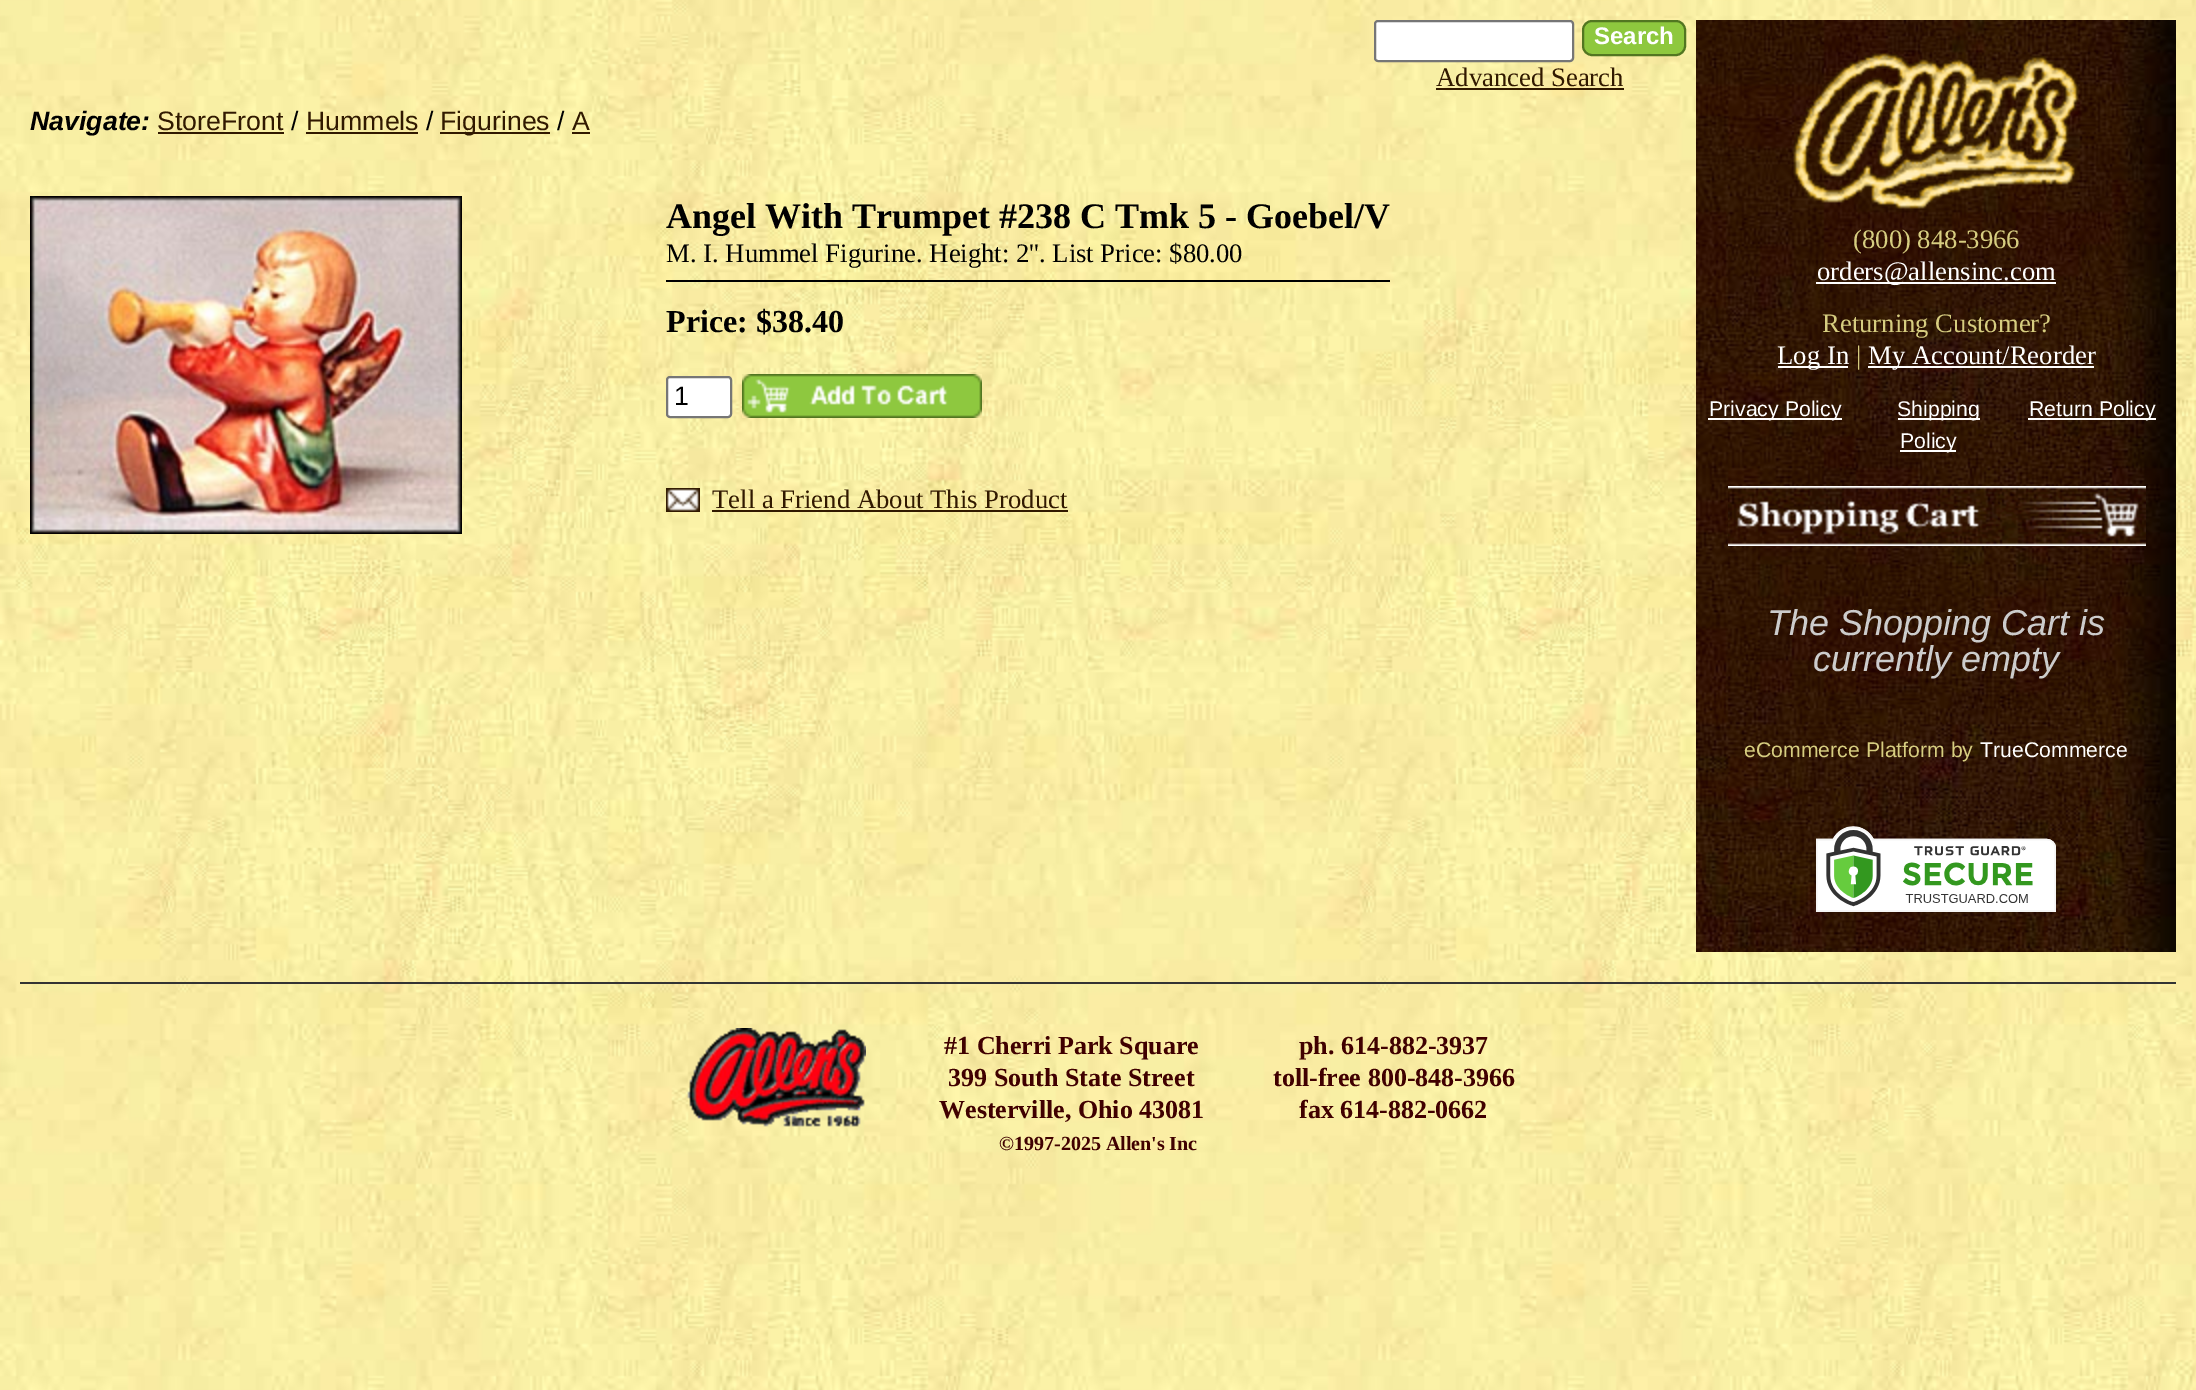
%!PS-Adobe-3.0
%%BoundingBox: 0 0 2196 1390
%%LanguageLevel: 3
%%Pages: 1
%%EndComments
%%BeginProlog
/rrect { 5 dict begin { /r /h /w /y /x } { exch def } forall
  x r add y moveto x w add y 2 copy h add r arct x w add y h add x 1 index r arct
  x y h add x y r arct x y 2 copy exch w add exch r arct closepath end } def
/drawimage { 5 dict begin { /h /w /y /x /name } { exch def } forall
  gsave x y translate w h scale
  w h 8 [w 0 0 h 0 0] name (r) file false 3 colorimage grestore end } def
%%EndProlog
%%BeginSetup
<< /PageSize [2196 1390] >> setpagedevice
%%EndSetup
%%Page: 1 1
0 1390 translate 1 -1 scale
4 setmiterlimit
1 setgray
0 0 2196 1390 rectfill
(images/1.raw) 0 0 2196 1390 drawimage
1375 21 198 40 3 rrect gsave fill grestore
0.463 setgray
2 setlinewidth
stroke
0.557 0.784 0.243 setrgbcolor
1583 21 102 34 9 rrect gsave fill grestore
0.322 0.463 0.129 setrgbcolor
stroke
0.192 0.098 0 setrgbcolor
1436 88 188 2 rectfill
158 132 126 2 rectfill
306 132 112 2 rectfill
440 132 110 2 rectfill
572 132 18 2 rectfill
(images/2.raw) 30 196 432 338 drawimage
0 setgray
666 280 724 2 rectfill
1 setgray
667 377 64 40 3 rrect gsave fill grestore
0.463 setgray
stroke
(images/3.raw) 742 374 240 44 drawimage
(images/4.raw) 666 488 34 24 drawimage
0.192 0.098 0 setrgbcolor
712 510 356 2 rectfill
(images/5.raw) 1696 20 480 932 drawimage
(images/6.raw) 1793 53 286 156 drawimage
1 setgray
1816 282 240 2 rectfill
1778 366 70 2 rectfill
1868 366 226 2 rectfill
1708 418 134 2 rectfill
1898 418 82 2 rectfill
1900 450 56 2 rectfill
2028 418 128 2 rectfill
(images/7.raw) 1728 486 418 60 drawimage
(images/8.raw) 1816 826 240 86 drawimage
0.2 setgray
20 982 2156 2 rectfill
(images/9.raw) 687 1028 179 99 drawimage
/LiberationSans-Bold [24 0 0 -24 0 0] selectfont
1 setgray
1594 44 moveto (Search) show
/LiberationSerif-Regular [26.7 0 0 -26.7 0 0] selectfont
0.192 0.098 0 setrgbcolor
1436 86 moveto (Advanced Search) show
/LiberationSans-BoldItalic [26.7 0 0 -26.7 0 0] selectfont
0 setgray
30 130 moveto (Navigate:) show
/LiberationSans-Regular [26.7 0 0 -26.7 0 0] selectfont
0.192 0.098 0 setrgbcolor
157 130 moveto (StoreFront) show
0 setgray
291 130 moveto (/) show
0.192 0.098 0 setrgbcolor
306 130 moveto (Hummels) show
0 setgray
426 130 moveto (/) show
0.192 0.098 0 setrgbcolor
440 130 moveto (Figurines) show
0 setgray
557 130 moveto (/) show
0.192 0.098 0 setrgbcolor
572 130 moveto (A) show
/LiberationSerif-Bold [36 0 0 -36 0 0] selectfont
0 setgray
666 228 moveto (Angel With Trumpet #238 C Tmk 5 - Goebel/V) show
/LiberationSerif-Regular [26.7 0 0 -26.7 0 0] selectfont
666 262 moveto (M. I. Hummel Figurine. Height: 2''. List Price: $80.00) show
/LiberationSerif-Bold [32 0 0 -32 0 0] selectfont
666 332 moveto (Price: $38.40) show
/LiberationSans-Regular [26.7 0 0 -26.7 0 0] selectfont
674 405 moveto (1) show
/LiberationSerif-Regular [26.7 0 0 -26.7 0 0] selectfont
0.192 0.098 0 setrgbcolor
712 508 moveto (Tell a Friend About This Product) show
0.839 0.804 0.502 setrgbcolor
1853 248 moveto (\(800\) 848-3966) show
1 setgray
1817 280 moveto (orders@allensinc.com) show
0.839 0.804 0.502 setrgbcolor
1822 332 moveto (Returning Customer?) show
1 setgray
1777 364 moveto (Log In) show
0.839 0.804 0.502 setrgbcolor
1856 364 moveto (|) show
1 setgray
1868 364 moveto (My Account/Reorder) show
/LiberationSans-Regular [21.25 0 0 -21.25 0 0] selectfont
1709 416 moveto (Privacy Policy) show
1897 416 moveto (Shipping) show
1900 448 moveto (Policy) show
2029 416 moveto (Return Policy) show
/LiberationSans-Italic [36 0 0 -36 0 0] selectfont
0.8 setgray
1767 635 moveto (The Shopping Cart is) show
1813 671 moveto (currently empty) show
/LiberationSans-Regular [21.25 0 0 -21.25 0 0] selectfont
0.839 0.804 0.502 setrgbcolor
1744 757 moveto (eCommerce Platform by) show
1 setgray
1980 757 moveto (TrueCommerce) show
/LiberationSerif-Bold [26 0 0 -26 0 0] selectfont
0.251 0 0 setrgbcolor
944 1054 moveto (#1 Cherri Park Square) show
948 1086 moveto (399 South State Street) show
939 1118 moveto (Westerville, Ohio 43081) show
1299 1054 moveto (ph. 614-882-3937) show
1273 1086 moveto (toll-free 800-848-3966) show
1299 1118 moveto (fax 614-882-0662) show
/LiberationSerif-Bold [20 0 0 -20 0 0] selectfont
999 1150 moveto (©1997-2025 Allen's Inc) show
showpage
%%EOF
